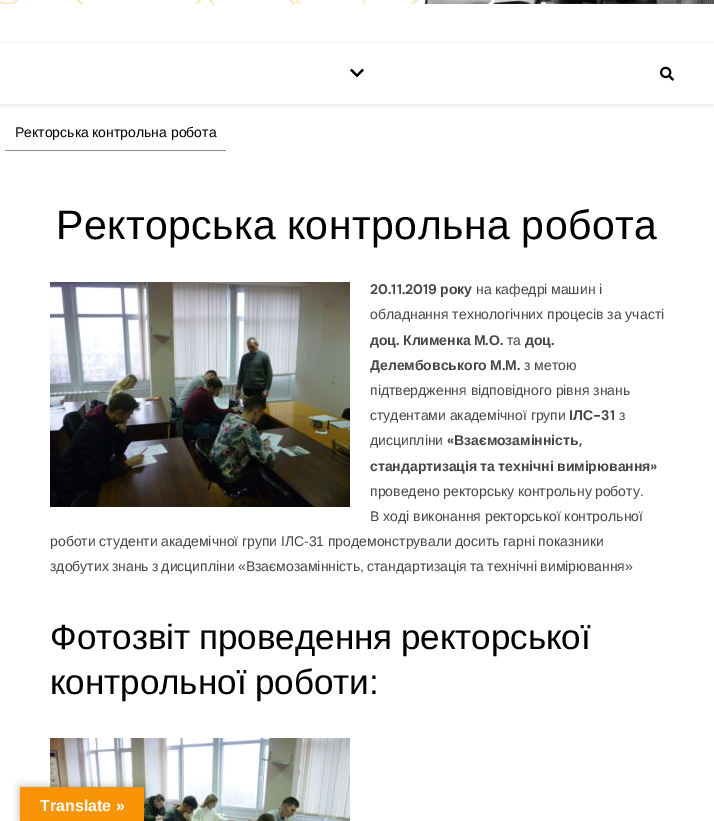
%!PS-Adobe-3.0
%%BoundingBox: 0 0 714 821
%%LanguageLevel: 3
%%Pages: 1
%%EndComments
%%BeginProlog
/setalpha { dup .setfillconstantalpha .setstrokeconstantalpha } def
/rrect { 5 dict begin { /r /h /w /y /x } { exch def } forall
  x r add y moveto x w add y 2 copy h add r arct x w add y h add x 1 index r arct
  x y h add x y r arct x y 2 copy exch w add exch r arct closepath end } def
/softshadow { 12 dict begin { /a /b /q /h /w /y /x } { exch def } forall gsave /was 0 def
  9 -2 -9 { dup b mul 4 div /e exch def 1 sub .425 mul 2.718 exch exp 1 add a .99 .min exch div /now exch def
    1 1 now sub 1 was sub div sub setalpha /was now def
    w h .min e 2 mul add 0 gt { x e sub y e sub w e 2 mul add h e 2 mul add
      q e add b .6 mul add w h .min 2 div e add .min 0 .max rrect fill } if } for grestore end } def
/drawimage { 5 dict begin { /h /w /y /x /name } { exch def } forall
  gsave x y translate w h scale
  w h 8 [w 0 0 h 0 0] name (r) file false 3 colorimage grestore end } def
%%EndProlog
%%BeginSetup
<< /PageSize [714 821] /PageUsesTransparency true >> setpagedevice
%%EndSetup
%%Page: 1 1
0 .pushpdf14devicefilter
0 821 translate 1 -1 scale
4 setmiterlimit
1 setgray
0 0 714 821 rectfill
(images/1.raw) 0 0 714 4 drawimage
gsave
newpath 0 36 moveto 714 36 lineto 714 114 lineto 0 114 lineto closepath 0 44 moveto 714 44 lineto 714 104 lineto 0 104 lineto closepath eoclip newpath
0 setgray
0 45 714 60 0 2.5 0.1 softshadow
grestore
(images/2.raw) 350 68 14 10 drawimage
(images/3.raw) 660 66 14 15 drawimage
0.545 setgray
5 150 221 1 rectfill
(images/4.raw) 50 282 300 225 drawimage
(images/5.raw) 50 738 300 83 drawimage
0 setgray
20 787 124 34 0 4.5 0.3 softshadow
0.973 0.58 0.024 setrgbcolor
20 787 124 34 rectfill
/LiberationSans-Regular [14 0 0 -14 0 0] selectfont
0 setgray
15 137 moveto (Ректорська контрольна робота) show
/LiberationSans-Regular [41 0 0 -41 0 0] selectfont
56 239 moveto -1 0 32 0.5 0 (Ректорська контрольна робота) awidthshow
/DMSans-Bold [14 0 0 -14 0 0] selectfont
0.275 setgray
370 294 moveto (20.11.2019) show
/LiberationSans-Bold [14 0 0 -14 0 0] selectfont
440 294 moveto (року) show
/LiberationSans-Regular [14 0 0 -14 0 0] selectfont
476 294 moveto -0.25 0 32 (на кафедрі машин і) widthshow
370 319 moveto (обладнання технологічних процесів за участі) show
/LiberationSans-Bold [14 0 0 -14 0 0] selectfont
370 345 moveto (доц) show
/DMSans-Bold [14 0 0 -14 0 0] selectfont
396 345 moveto (.) show
/LiberationSans-Bold [14 0 0 -14 0 0] selectfont
403 345 moveto (Клименка М) show
/DMSans-Bold [14 0 0 -14 0 0] selectfont
485 345 moveto (.) show
/LiberationSans-Bold [14 0 0 -14 0 0] selectfont
489 345 moveto (О) show
/DMSans-Bold [14 0 0 -14 0 0] selectfont
500 345 moveto (.) show
/LiberationSans-Regular [14 0 0 -14 0 0] selectfont
507 345 moveto (та) show
/LiberationSans-Bold [14 0 0 -14 0 0] selectfont
525 345 moveto (доц) show
/DMSans-Bold [14 0 0 -14 0 0] selectfont
551 345 moveto (.) show
/LiberationSans-Bold [14 0 0 -14 0 0] selectfont
370 370 moveto -0.5 0 32 (Делембовського М) widthshow
/DMSans-Bold [14 0 0 -14 0 0] selectfont
502 370 moveto (.) show
/LiberationSans-Bold [14 0 0 -14 0 0] selectfont
505 370 moveto (М) show
/DMSans-Bold [14 0 0 -14 0 0] selectfont
517 370 moveto (.) show
/LiberationSans-Regular [14 0 0 -14 0 0] selectfont
524 370 moveto (з метою) show
370 395 moveto (підтвердження відповідного рівня знань) show
370 420 moveto (студентами академічної групи) show
/LiberationSans-Bold [14 0 0 -14 0 0] selectfont
569 420 moveto (ІЛС) show
/DMSans-Bold [14 0 0 -14 0 0] selectfont
593 420 moveto (-31) show
/LiberationSans-Regular [14 0 0 -14 0 0] selectfont
619 420 moveto (з) show
370 445 moveto (дисципліни) show
/DMSans-Bold [14 0 0 -14 0 0] selectfont
447 445 moveto («) show
/LiberationSans-Bold [14 0 0 -14 0 0] selectfont
454 445 moveto (Взаємозамінність) show
/DMSans-Bold [14 0 0 -14 0 0] selectfont
579 445 moveto (,) show
/LiberationSans-Bold [14 0 0 -14 0 0] selectfont
370 471 moveto -0.5 0 32 (стандартизація та технічні вимірювання) widthshow
/DMSans-Bold [14 0 0 -14 0 0] selectfont
650 471 moveto (») show
/LiberationSans-Regular [14 0 0 -14 0 0] selectfont
370 496 moveto -0.5 0 32 (проведено ректорську контрольну роботу.) widthshow
370 521 moveto (В ході виконання ректорської контрольної) show
50 546 moveto -0.25 0 32 (роботи студенти академічної групи ІЛС-31 продемонстрували досить гарні показники) widthshow
50 571 moveto -0.75 0 32 (здобутих знань з дисципліни «Взаємозамінність, стандартизація та технічні вимірювання») widthshow
/LiberationSans-Regular [35 0 0 -35 0 0] selectfont
0 setgray
50 649 moveto -1 0 32 (Фотозвіт проведення ректорської) widthshow
50 694 moveto -1 0 32 (контрольної роботи:) widthshow
/LiberationSans-Bold [16 0 0 -16 0 0] selectfont
1 setgray
40 811 moveto (Translate ») show
.poppdf14devicefilter showpage
%%EOF
